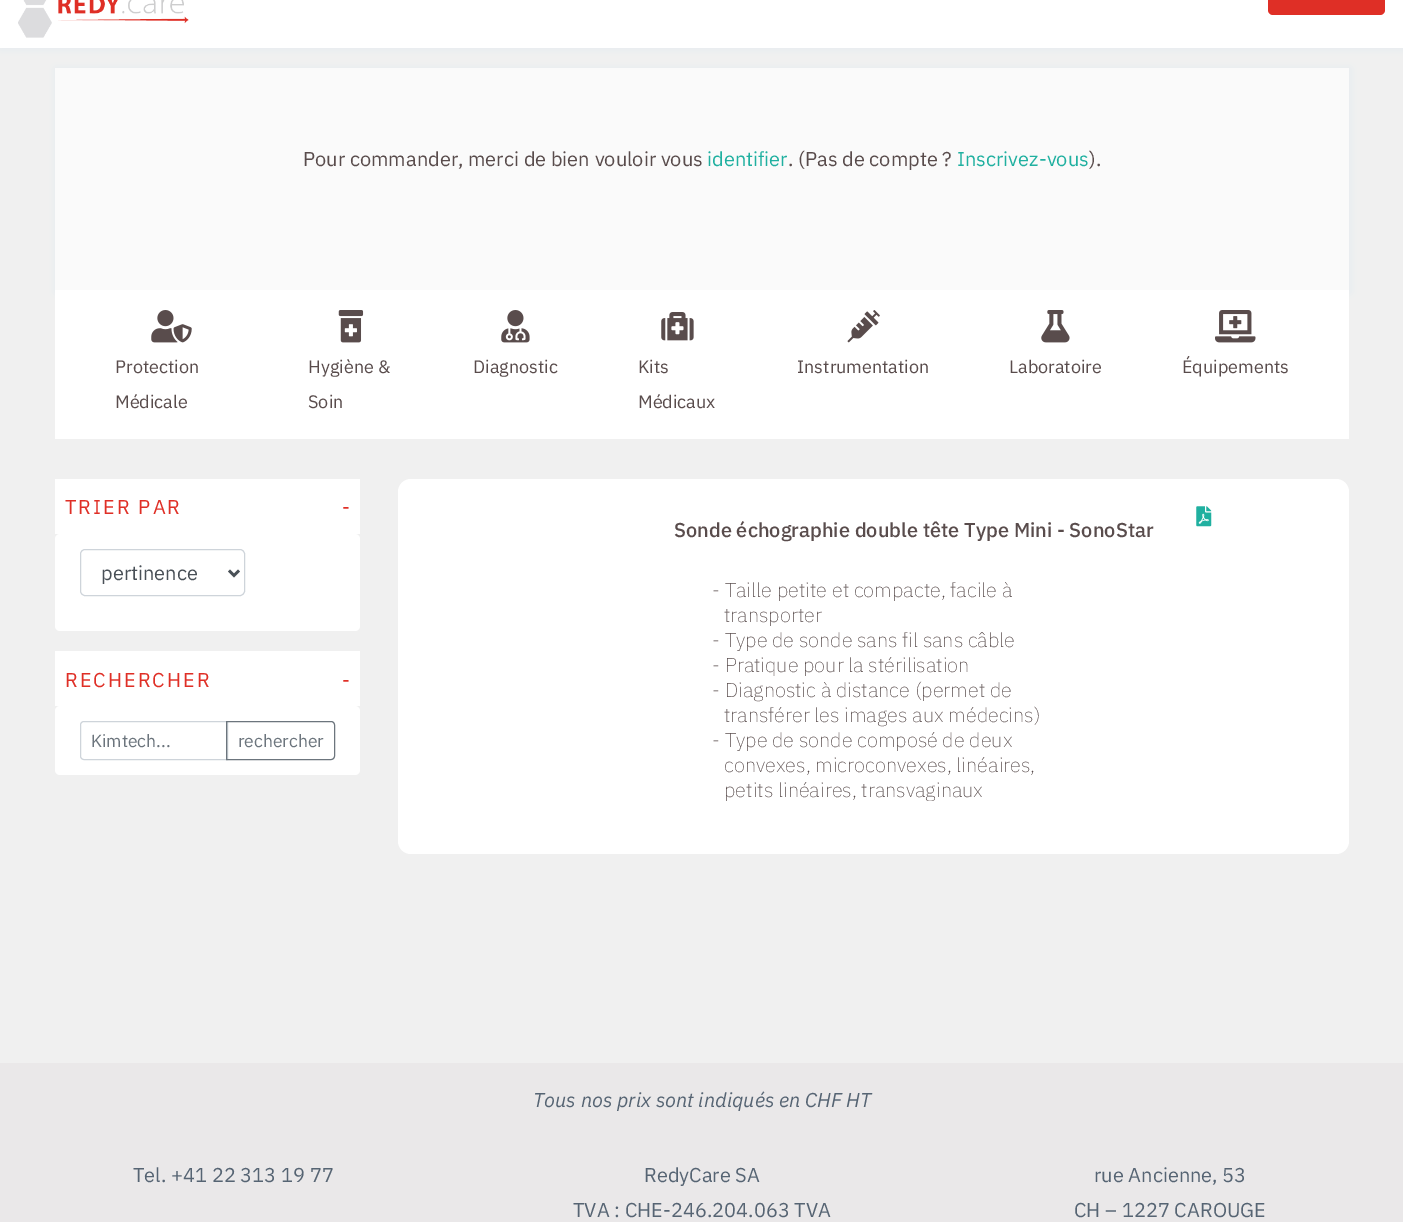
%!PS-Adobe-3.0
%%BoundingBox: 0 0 1403 1222
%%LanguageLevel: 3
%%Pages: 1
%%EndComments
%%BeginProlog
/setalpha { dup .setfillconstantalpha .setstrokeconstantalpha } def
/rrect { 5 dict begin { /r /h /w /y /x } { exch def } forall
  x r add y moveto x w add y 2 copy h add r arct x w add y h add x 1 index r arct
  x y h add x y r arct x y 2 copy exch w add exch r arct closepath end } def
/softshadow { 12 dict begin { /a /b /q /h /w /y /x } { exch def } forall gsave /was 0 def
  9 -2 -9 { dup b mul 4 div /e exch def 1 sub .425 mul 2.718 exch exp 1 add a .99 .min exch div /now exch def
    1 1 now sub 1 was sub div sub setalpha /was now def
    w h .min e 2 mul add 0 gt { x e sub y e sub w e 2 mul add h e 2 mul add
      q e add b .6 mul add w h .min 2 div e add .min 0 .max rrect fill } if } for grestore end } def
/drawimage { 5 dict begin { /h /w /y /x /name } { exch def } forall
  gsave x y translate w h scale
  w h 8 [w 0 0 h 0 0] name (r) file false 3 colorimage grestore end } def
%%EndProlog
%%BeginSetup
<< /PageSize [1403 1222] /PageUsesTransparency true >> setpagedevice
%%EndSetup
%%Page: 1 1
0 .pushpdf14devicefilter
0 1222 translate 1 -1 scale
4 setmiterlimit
0.941 setgray
0 0 1403 1222 rectfill
0.902 0.922 0.937 setrgbcolor
0 -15 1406 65 0 5 1 softshadow
1 setgray
0 0 1403 48 rectfill
(images/1.raw) 18 0 171 38 drawimage
0.875 0.184 0.149 setrgbcolor
1268 -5 117 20 5 rrect fill
0.902 0.922 0.937 setrgbcolor
55 68 1296 225 0 5 1 softshadow
0.98 setgray
55 68 1294 222 rectfill
1 setgray
55 290 1294 149 rectfill
(images/2.raw) 151 310 41 33 drawimage
(images/3.raw) 338 310 26 33 drawimage
(images/4.raw) 501 310 29 33 drawimage
(images/5.raw) 661 312 33 29 drawimage
(images/6.raw) 847 310 33 33 drawimage
(images/7.raw) 1041 310 29 33 drawimage
(images/8.raw) 1215 310 41 33 drawimage
55 479 305 55 rectfill
55 534 305 97 5 rrect fill
0.808 0.831 0.855 setrgbcolor
80.5 549.5 164 46 4.5 rrect stroke
0.286 0.314 0.341 setrgbcolor
2.5 setlinewidth
newpath 229 570.5 moveto 234 575.5 lineto 239 570.5 lineto stroke
1 setgray
55 651 305 55 rectfill
55 706 305 69 5 rrect fill
0.808 0.831 0.855 setrgbcolor
1 setlinewidth
newpath 84 721.5 moveto 227.5 721.5 lineto 227.5 759.5 lineto 84 759.5 lineto 82 759.5 80.5 758 80.5 756 curveto 80.5 725 lineto 80.5 723 82 721.5 84 721.5 curveto closepath stroke
0.424 0.459 0.49 setrgbcolor
newpath 226.5 721.5 moveto 331 721.5 lineto 333 721.5 334.5 723 334.5 725 curveto 334.5 756 lineto 334.5 758 333 759.5 331 759.5 curveto 226.5 759.5 lineto closepath stroke
1 setgray
398 479 951 375 13 rrect fill
(images/9.raw) 1196 506 16 21 drawimage
0.918 0.91 0.914 setrgbcolor
0 1063 1403 159 rectfill
/IBMPlexSans-Regular [20 0 0 -20 0 0] selectfont
0.349 0.298 0.298 setrgbcolor
303 166 moveto (Pour commander, merci de bien vouloir vous) show
0.125 0.69 0.627 setrgbcolor
707 166 moveto (identifier) show
0.349 0.298 0.298 setrgbcolor
788 166 moveto (. \(Pas de compte ?) show
0.125 0.69 0.627 setrgbcolor
957 166 moveto (Inscrivez-vous) show
0.349 0.298 0.298 setrgbcolor
1089 166 moveto (\).) show
/IBMPlexSans-Regular [18 0 0 -18 0 0] selectfont
115 373 moveto (Protection) show
115 408 moveto (Médicale) show
308 373 moveto (Hygiène &) show
308 408 moveto (Soin) show
473 373 moveto (Diagnostic) show
638 373 moveto (Kits) show
638 408 moveto (Médicaux) show
797 373 moveto (Instrumentation) show
1009 373 moveto (Laboratoire) show
1182 373 moveto (Équipements) show
/IBMPlexSans-Regular [20 0 0 -20 0 0] selectfont
0.875 0.184 0.149 setrgbcolor
65 514 moveto 2 0 (TRIER PAR) ashow
342 514 moveto (-) show
0.286 0.314 0.341 setrgbcolor
101 580 moveto (pertinence) show
0.875 0.184 0.149 setrgbcolor
65 687 moveto 2 0 (RECHERCHER) ashow
342 687 moveto (-) show
/IBMPlexSans-Regular [17.5 0 0 -17.5 0 0] selectfont
0.424 0.459 0.49 setrgbcolor
91 747 moveto (Kimtech...) show
238 747 moveto (rechercher) show
/IBMPlexSans-Medium [20 0 0 -20 0 0] selectfont
0.349 0.298 0.298 setrgbcolor
674 537 moveto (Sonde échographie double tête Type Mini - SonoStar) show
/IBMPlexSans-ExtraLight [20 0 0 -20 0 0] selectfont
712 597 moveto (- Taille petite et compacte, facile à) show
724 622 moveto (transporter) show
712 647 moveto (- Type de sonde sans fil sans câble) show
712 672 moveto (- Pratique pour la stérilisation) show
712 697 moveto (- Diagnostic à distance \(permet de) show
724 722 moveto (transférer les images aux médecins\)) show
712 747 moveto (- Type de sonde composé de deux) show
724 772 moveto (convexes, microconvexes, linéaires,) show
gsave
675 551 396 250 rectclip
724 797 moveto (petits linéaires, transvaginaux) show
grestore
/IBMPlexSans-Italic [20 0 0 -20 0 0] selectfont
0.337 0.392 0.451 setrgbcolor
533 1107 moveto (Tous nos prix sont indiqués en CHF HT) show
/IBMPlexSans-Regular [20 0 0 -20 0 0] selectfont
133 1182 moveto (Tel. +41 22 313 19 77) show
644 1182 moveto (RedyCare SA) show
573 1217 moveto (TVA : CHE-246.204.063 TVA) show
1094 1182 moveto (rue Ancienne, 53) show
1074 1217 moveto (CH – 1227 CAROUGE) show
.poppdf14devicefilter showpage
%%EOF
